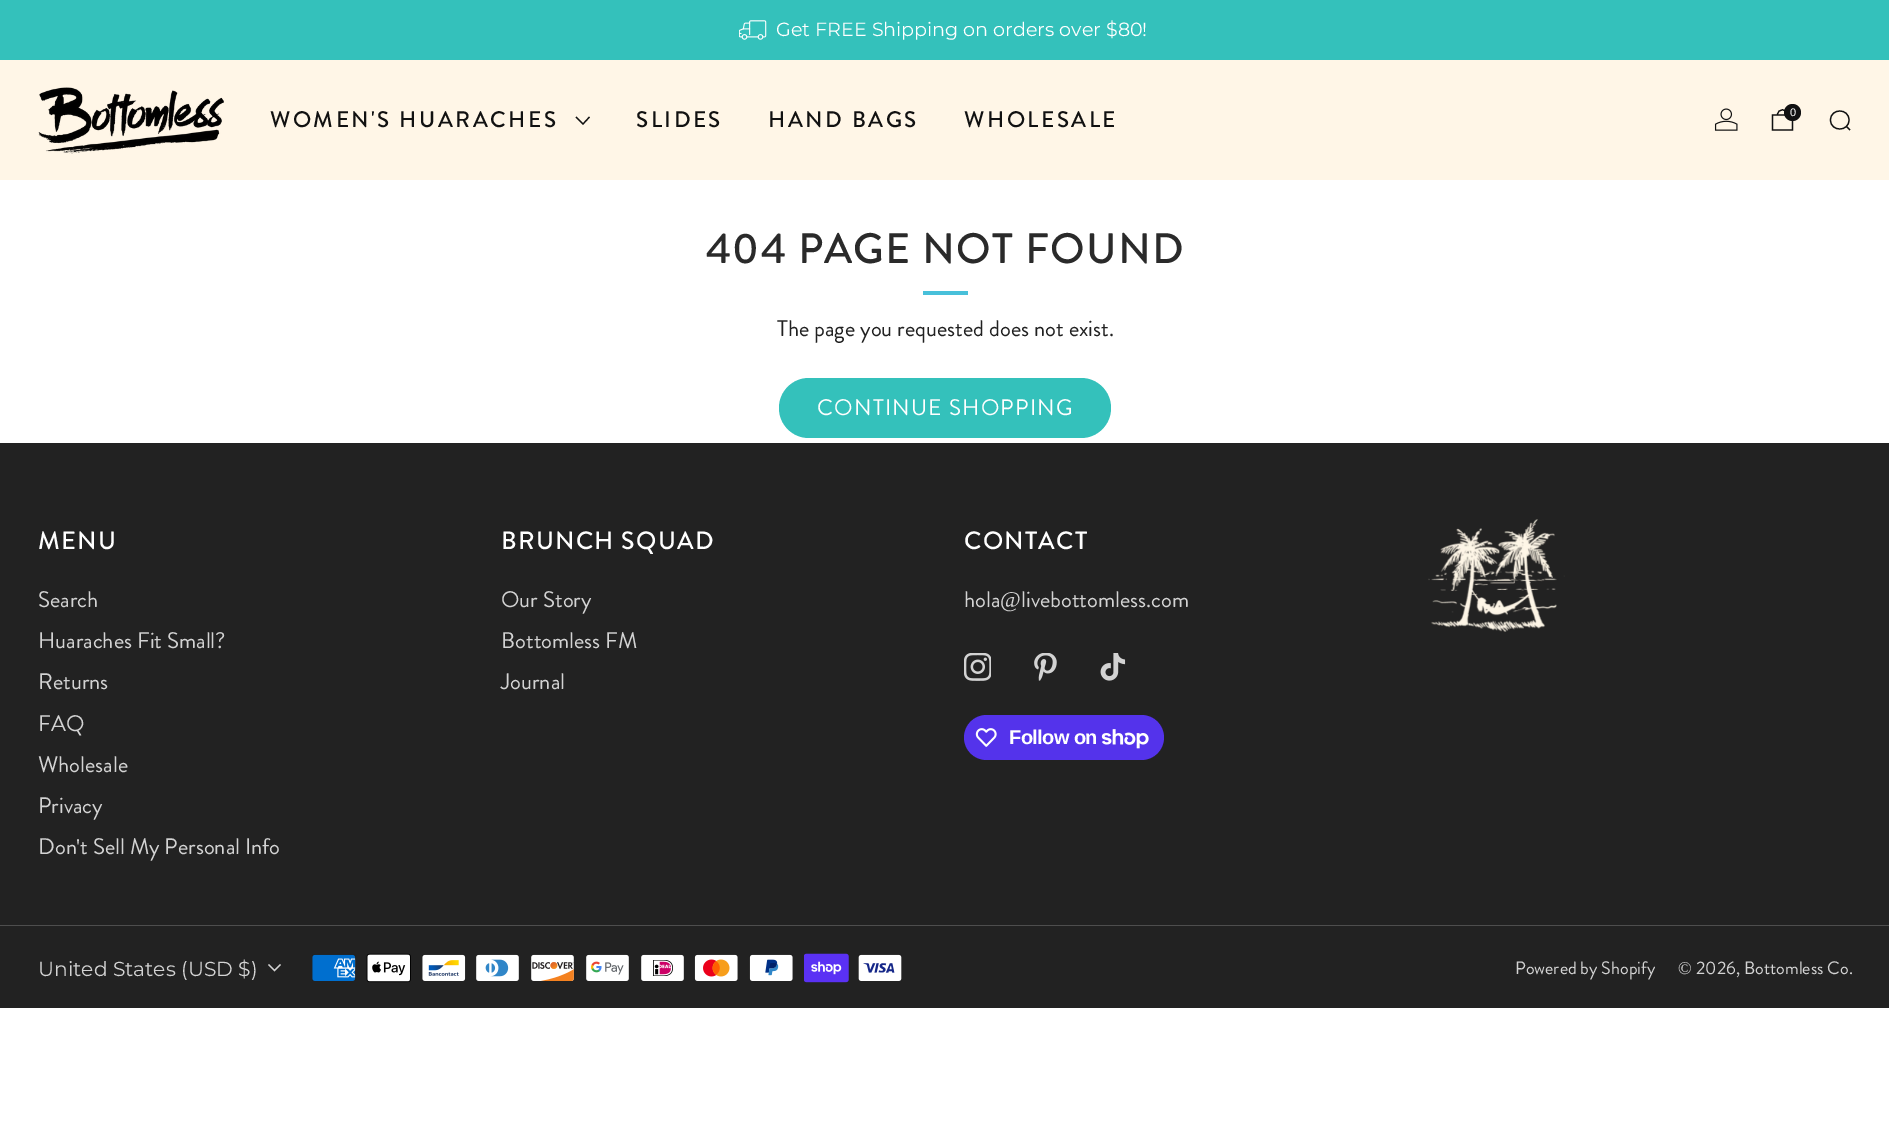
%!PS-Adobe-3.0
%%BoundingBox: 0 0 1889 1131
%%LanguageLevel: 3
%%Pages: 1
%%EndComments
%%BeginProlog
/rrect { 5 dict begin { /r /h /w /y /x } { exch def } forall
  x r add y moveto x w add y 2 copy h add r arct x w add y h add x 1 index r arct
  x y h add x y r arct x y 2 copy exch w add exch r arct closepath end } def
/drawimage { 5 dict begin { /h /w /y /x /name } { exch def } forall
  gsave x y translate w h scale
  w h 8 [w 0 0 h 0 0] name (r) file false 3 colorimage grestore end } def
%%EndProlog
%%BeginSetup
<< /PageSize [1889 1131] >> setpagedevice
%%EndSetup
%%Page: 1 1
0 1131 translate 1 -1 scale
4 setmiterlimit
1 setgray
0 0 1889 1131 rectfill
0.204 0.757 0.733 setrgbcolor
0 0 1889 60 rectfill
(images/1.raw) 739 20 28 20 drawimage
1 0.965 0.906 setrgbcolor
0 60 1889 120 rectfill
(images/2.raw) 38 87 186 67 drawimage
0.067 setgray
1.2 setlinewidth
2 setlinecap
newpath 589 117.5 moveto 583 124 lineto 576.5 117.5 lineto stroke
(images/3.raw) 1714 108 24 23 drawimage
0 setlinecap
newpath 1787.5 115 moveto 1787.5 108 1777.5 108 1777.5 115 curveto 1772.5 115 moveto 1792.5 115 lineto 1792.5 130 lineto 1772.5 130 lineto closepath stroke
newpath 1792.5 112.5 8.5 0 360 arc closepath fill
newpath 1846.5 126.5 moveto 1850 130 lineto 1849 120 moveto 1849 132 1830.5 132 1830.5 120 curveto 1830.5 108 1849 108 1849 120 curveto closepath stroke
0.282 0.753 0.855 setrgbcolor
923 291 45 4 rectfill
0.204 0.757 0.733 setrgbcolor
779 378 332 60 30 rrect fill
0.133 setgray
0 443 1889 565 rectfill
(images/4.raw) 964 653 27 28 drawimage
(images/5.raw) 1034 653 23 28 drawimage
(images/6.raw) 1100 653 26 28 drawimage
0.329 0.2 0.922 setrgbcolor
964 715 200 45 22.5 rrect fill
(images/7.raw) 975 728 22 19 drawimage
(images/8.raw) 1101 729 48 20 drawimage
(images/9.raw) 1428 519 137 113 drawimage
0.306 setgray
0 925 1889 1 rectfill
0.827 setgray
2 setlinecap
newpath 280 965 moveto 274.5 970.5 lineto 269 965 lineto stroke
(images/10.raw) 312 954 44 27 drawimage
(images/11.raw) 366 953 45 30 drawimage
(images/12.raw) 422 954 44 27 drawimage
(images/13.raw) 476 954 43 27 drawimage
(images/14.raw) 531 954 43 27 drawimage
(images/15.raw) 586 954 43 27 drawimage
(images/16.raw) 641 954 43 27 drawimage
(images/17.raw) 694 954 44 27 drawimage
(images/18.raw) 749 954 44 27 drawimage
(images/19.raw) 804 953 45 30 drawimage
(images/20.raw) 858 954 44 27 drawimage
/Montserrat-Regular [19.1 0 0 -19.1 0 0] selectfont
1 setgray
776 36 moveto (Get FREE Shipping on orders over $80!) show
/BrandonGrotesque-Medium [22.5 0 0 -22.5 0 0] selectfont
0.067 setgray
270 127 moveto 2.5 0 (WOMEN'S HUARACHES) ashow
636 127 moveto 2.5 0 (SLIDES) ashow
768 127 moveto 2.5 0 (HAND BAGS) ashow
964 127 moveto 2.5 0 (WHOLESALE) ashow
/LiberationSans-Regular [11 0 0 -11 0 0] selectfont
1 setgray
1790 116 moveto (0) show
/BrandonGrotesque-Medium [42.5 0 0 -42.5 0 0] selectfont
0.165 setgray
706 263 moveto 1.25 0 (404 PAGE NOT FOUND) ashow
/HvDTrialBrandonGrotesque-Regular [22.5 0 0 -22.5 0 0] selectfont
0.129 setgray
777 336 moveto (The page you requested does not exist.) show
1 setgray
817 415 moveto 1.25 0 (CONTINUE SHOPPING) ashow
/BrandonGrotesque-Medium [25 0 0 -25 0 0] selectfont
38 549 moveto 1.25 0 (MENU) ashow
/HvDTrialBrandonGrotesque-Regular [22.5 0 0 -22.5 0 0] selectfont
0.827 setgray
38 607 moveto (Search) show
38 648 moveto (Huaraches Fit Small?) show
38 689 moveto (Returns) show
38 731 moveto (FAQ) show
38 772 moveto (Wholesale) show
38 813 moveto (Privacy) show
38 854 moveto (Don) show
/LiberationSerif-Regular [22.5 0 0 -22.5 0 0] selectfont
76 854 moveto (') show
/HvDTrialBrandonGrotesque-Regular [22.5 0 0 -22.5 0 0] selectfont
80 854 moveto (t Sell My Personal Info) show
/BrandonGrotesque-Medium [25 0 0 -25 0 0] selectfont
1 setgray
501 549 moveto 1.25 0 (BRUNCH SQUAD) ashow
/HvDTrialBrandonGrotesque-Regular [22.5 0 0 -22.5 0 0] selectfont
0.827 setgray
501 607 moveto (Our Story) show
501 648 moveto (Bottomless FM) show
501 689 moveto (Journal) show
/BrandonGrotesque-Medium [25 0 0 -25 0 0] selectfont
1 setgray
964 549 moveto 1.25 0 (CONTACT) ashow
/HvDTrialBrandonGrotesque-Regular [22.5 0 0 -22.5 0 0] selectfont
0.827 setgray
964 607 moveto (hola) show
/LiberationSerif-Regular [22.5 0 0 -22.5 0 0] selectfont
1000 607 moveto (@) show
/HvDTrialBrandonGrotesque-Regular [22.5 0 0 -22.5 0 0] selectfont
1021 607 moveto (livebottomless.com) show
/LiberationSans-Bold [20 0 0 -20 0 0] selectfont
1 setgray
1009 744 moveto -0.6 0 (Follow on) ashow
/Montserrat-Regular [20.25 0 0 -20.25 0 0] selectfont
0.827 setgray
38 976 moveto (United States \(USD $\)) show
/HvDTrialBrandonGrotesque-Regular [18 0 0 -18 0 0] selectfont
1515 974 moveto (Powered by Shopify) show
/LiberationSerif-Regular [18 0 0 -18 0 0] selectfont
1678 974 moveto (©) show
/HvDTrialBrandonGrotesque-Regular [18 0 0 -18 0 0] selectfont
1696 974 moveto (2026, Bottomless Co.) show
showpage
%%EOF
